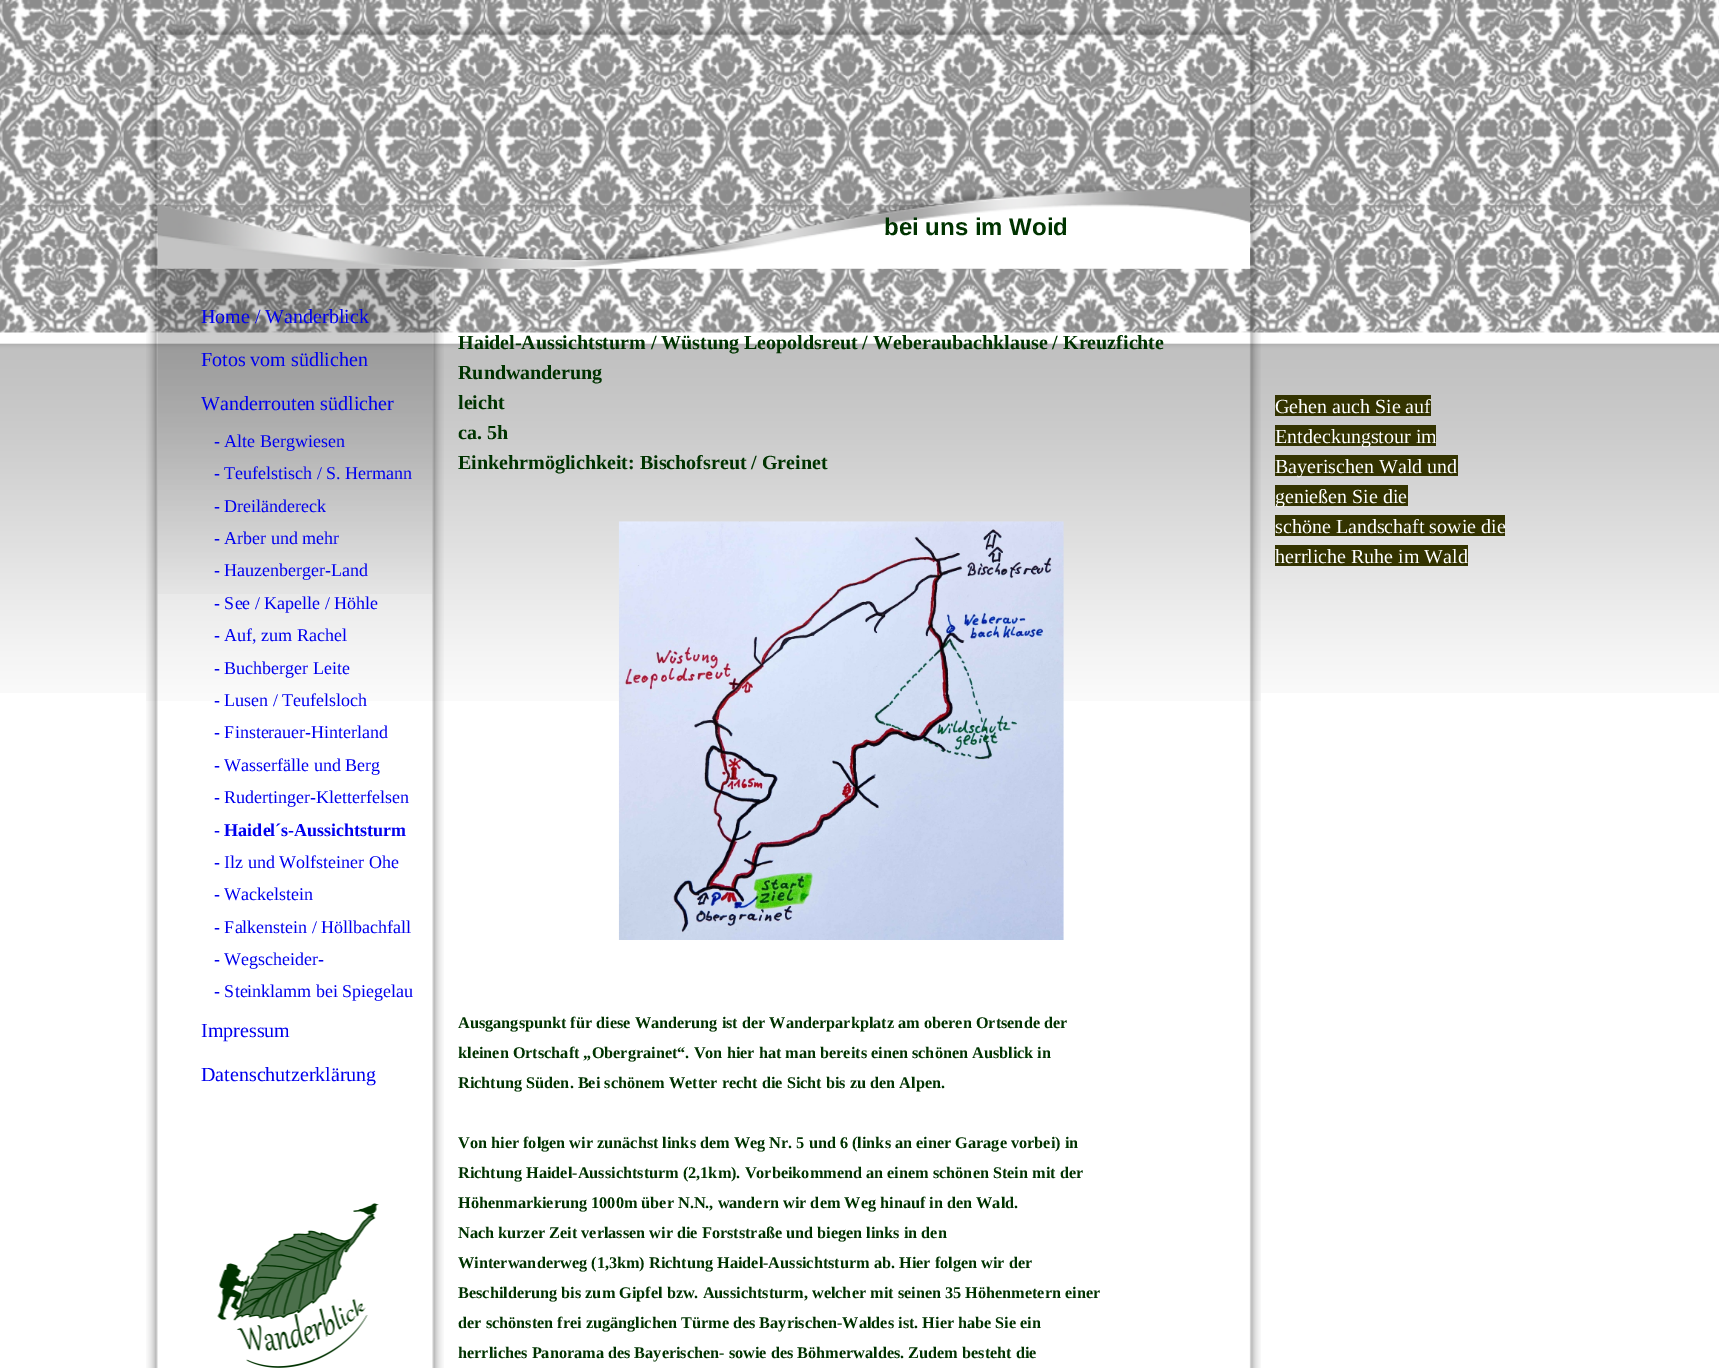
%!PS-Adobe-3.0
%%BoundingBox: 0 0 1719 1368
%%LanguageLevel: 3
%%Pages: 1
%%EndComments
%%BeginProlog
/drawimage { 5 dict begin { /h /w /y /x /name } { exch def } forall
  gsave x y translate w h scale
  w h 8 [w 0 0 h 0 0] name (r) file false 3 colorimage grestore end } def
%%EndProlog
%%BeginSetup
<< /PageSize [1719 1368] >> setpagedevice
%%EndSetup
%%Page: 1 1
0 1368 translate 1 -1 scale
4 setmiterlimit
1 setgray
0 0 1719 1368 rectfill
(images/1.raw) 0 0 1719 693 drawimage
(images/2.raw) 146 24 1115 245 drawimage
(images/3.raw) 157 185 1093 84 drawimage
(images/4.raw) 146 268 1115 1100 drawimage
(images/5.raw) 157 268 276 326 drawimage
(images/6.raw) 217 1203 162 165 drawimage
(images/7.raw) 432 268 12 1100 drawimage
(images/8.raw) 618 521 446 419 drawimage
0.2 0.2 0 setrgbcolor
1275 395 156 21 rectfill
1275 425 161 21 rectfill
1275 455 183 21 rectfill
1275 485 133 21 rectfill
1275 515 230 21 rectfill
1275 545 193 21 rectfill
/LiberationSans-Bold [24 0 0 -24 0 0] selectfont
0 0.2 0 setrgbcolor
884 235 moveto (bei uns im Woid) show
/LiberationSerif-Regular [20 0 0 -20 0 0] selectfont
0 0 0.933 setrgbcolor
201 323 moveto (Home / Wanderblick) show
201 366 moveto (Fotos vom südlichen) show
201 410 moveto (Wanderrouten südlicher) show
/LiberationSerif-Regular [18 0 0 -18 0 0] selectfont
214 447 moveto (- Alte Bergwiesen) show
214 479 moveto (- Teufelstisch / S. Hermann) show
214 512 moveto (- Dreiländereck) show
214 544 moveto (- Arber und mehr) show
214 576 moveto (- Hauzenberger-Land) show
214 609 moveto (- See / Kapelle / Höhle) show
214 641 moveto (- Auf, zum Rachel) show
214 674 moveto (- Buchberger Leite) show
214 706 moveto (- Lusen / Teufelsloch) show
214 738 moveto (- Finsterauer-Hinterland) show
214 771 moveto (- Wasserfälle und Berg) show
214 803 moveto (- Rudertinger-Kletterfelsen) show
/LiberationSerif-Bold [18 0 0 -18 0 0] selectfont
214 836 moveto (- Haidel´s-Aussichtsturm) show
/LiberationSerif-Regular [18 0 0 -18 0 0] selectfont
214 868 moveto (- Ilz und Wolfsteiner Ohe) show
214 900 moveto (- Wackelstein) show
214 933 moveto (- Falkenstein / Höllbachfall) show
214 965 moveto (- Wegscheider-) show
214 997 moveto (- Steinklamm bei Spiegelau) show
/LiberationSerif-Regular [20 0 0 -20 0 0] selectfont
201 1037 moveto (Impressum) show
201 1081 moveto (Datenschutzerklärung) show
/LiberationSerif-Bold [20 0 0 -20 0 0] selectfont
0 0.2 0 setrgbcolor
458 349 moveto (Haidel-Aussichtsturm / Wüstung Leopoldsreut / Weberaubachklause / Kreuzfichte) show
458 379 moveto (Rundwanderung) show
458 409 moveto (leicht) show
458 439 moveto (ca. 5h) show
458 469 moveto (Einkehrmöglichkeit: Bischofsreut / Greinet) show
/LiberationSerif-Bold [16.25 0 0 -16.25 0 0] selectfont
458 1028 moveto (Ausgangspunkt für diese Wanderung ist der Wanderparkplatz am oberen Ortsende der) show
458 1058 moveto (kleinen Ortschaft „Obergrainet“. Von hier hat man bereits einen schönen Ausblick in) show
458 1088 moveto (Richtung Süden. Bei schönem Wetter recht die Sicht bis zu den Alpen.) show
458 1148 moveto (Von hier folgen wir zunächst links dem Weg Nr. 5 und 6 \(links an einer Garage vorbei\) in) show
458 1178 moveto (Richtung Haidel-Aussichtsturm \(2,1km\). Vorbeikommend an einem schönen Stein mit der) show
458 1208 moveto (Höhenmarkierung 1000m über N.N., wandern wir dem Weg hinauf in den Wald.) show
458 1238 moveto (Nach kurzer Zeit verlassen wir die Forststraße und biegen links in den) show
458 1268 moveto (Winterwanderweg \(1,3km\) Richtung Haidel-Aussichtsturm ab. Hier folgen wir der) show
458 1298 moveto (Beschilderung bis zum Gipfel bzw. Aussichtsturm, welcher mit seinen 35 Höhenmetern einer) show
458 1328 moveto (der schönsten frei zugänglichen Türme des Bayrischen-Waldes ist. Hier habe Sie ein) show
458 1358 moveto (herrliches Panorama des Bayerischen- sowie des Böhmerwaldes. Zudem besteht die) show
/LiberationSerif-Regular [20 0 0 -20 0 0] selectfont
1 setgray
1275 413 moveto (Gehen auch Sie auf) show
1275 443 moveto (Entdeckungstour im) show
1275 473 moveto (Bayerischen Wald und) show
1275 503 moveto (genießen Sie die) show
1275 533 moveto (schöne Landschaft sowie die) show
1275 563 moveto (herrliche Ruhe im Wald) show
showpage
%%EOF
